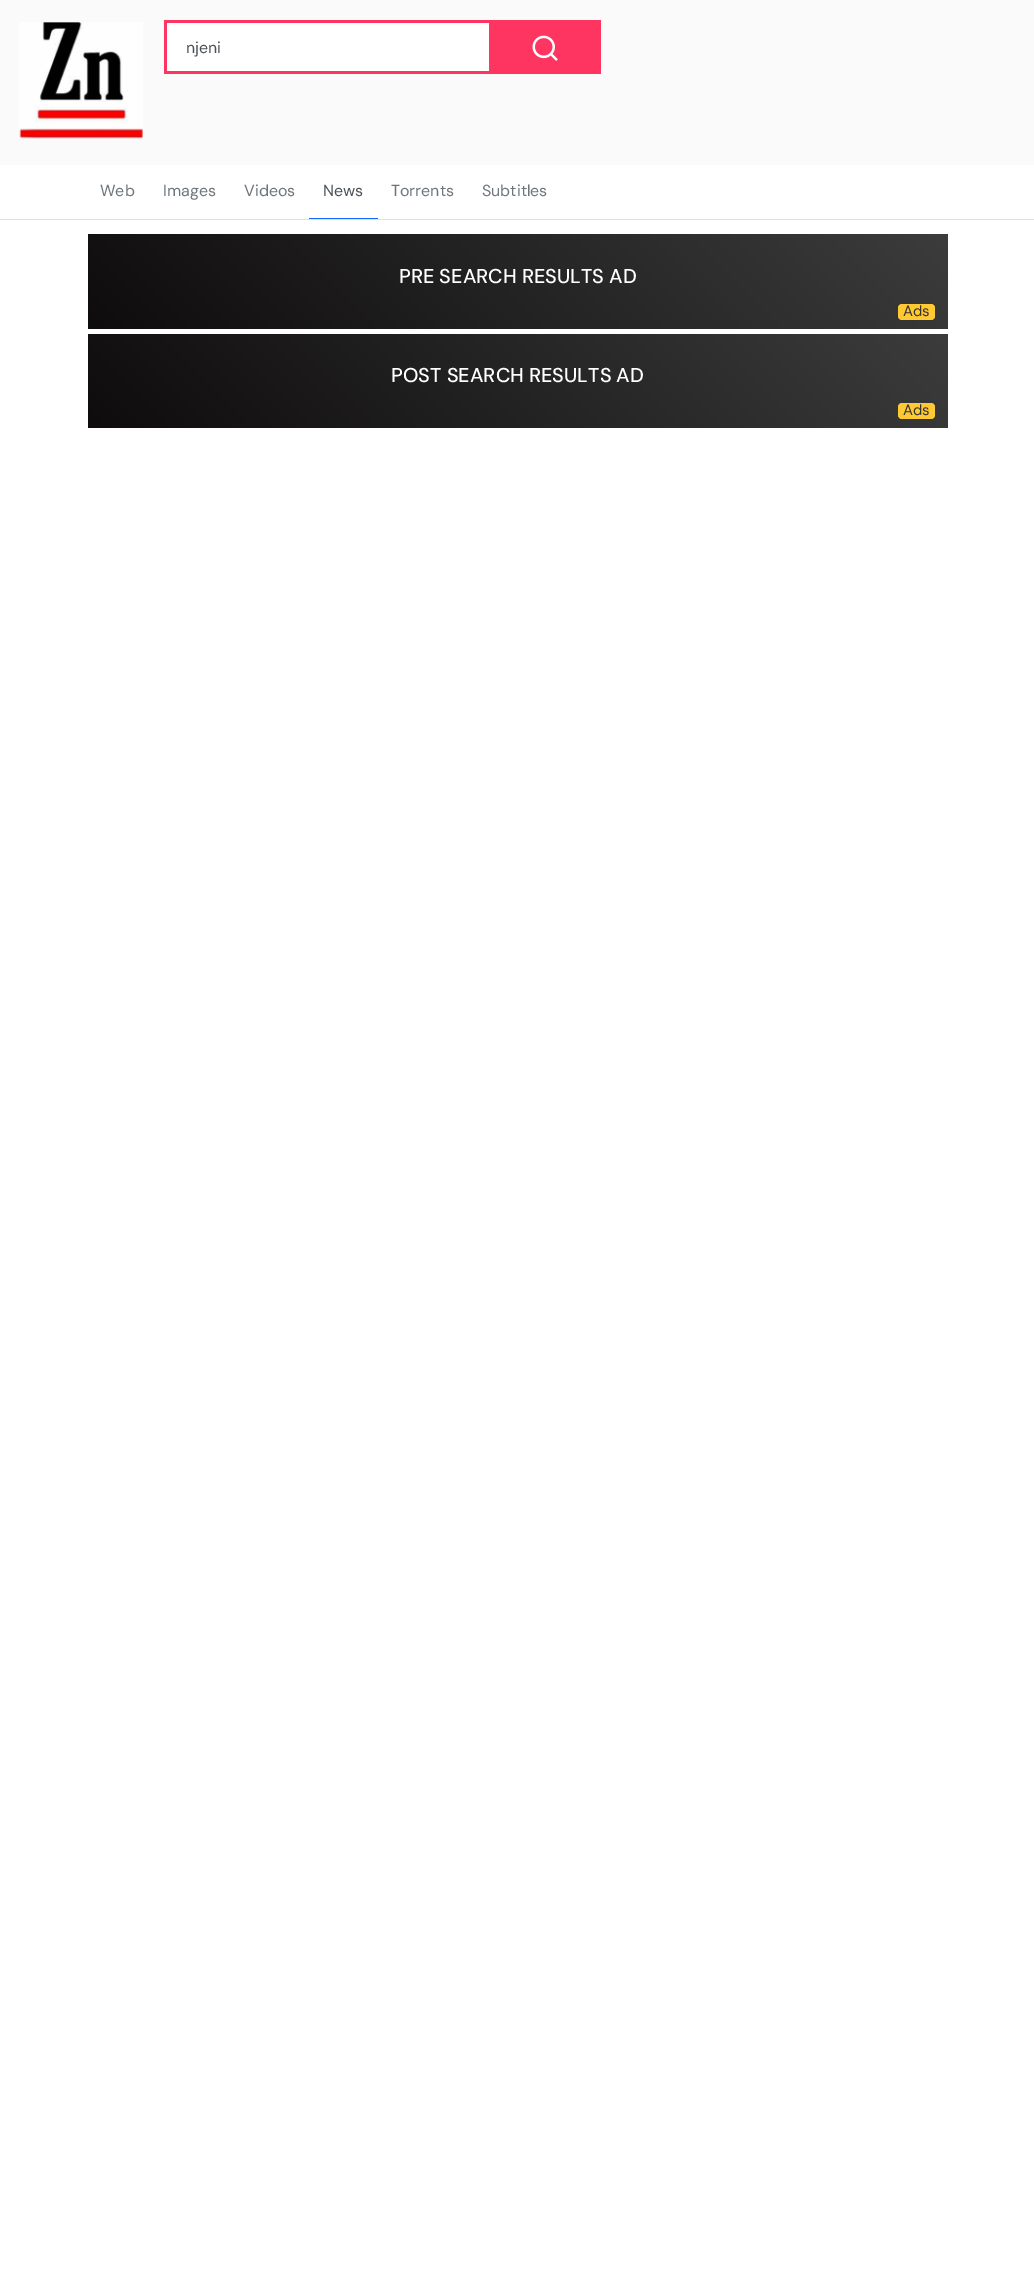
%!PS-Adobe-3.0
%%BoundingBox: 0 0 1034 2283
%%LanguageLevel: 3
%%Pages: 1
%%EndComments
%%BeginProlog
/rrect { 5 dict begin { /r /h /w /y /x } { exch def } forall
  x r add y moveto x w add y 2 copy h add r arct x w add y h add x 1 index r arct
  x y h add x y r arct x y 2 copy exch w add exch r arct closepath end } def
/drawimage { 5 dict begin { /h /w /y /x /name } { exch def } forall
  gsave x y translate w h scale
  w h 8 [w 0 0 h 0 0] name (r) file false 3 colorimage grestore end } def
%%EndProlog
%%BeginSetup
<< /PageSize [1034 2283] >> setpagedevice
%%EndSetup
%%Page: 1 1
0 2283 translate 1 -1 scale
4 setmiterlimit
1 setgray
0 0 1034 2283 rectfill
0.98 setgray
0 0 1034 165 rectfill
(images/1.raw) 19 22 124 117 drawimage
1 setgray
167 23 322 48 rectfill
0.996 0.208 0.376 setrgbcolor
164 20 326 3 rectfill
164 71 326 3 rectfill
164 20 3 54 rectfill
489 20 112 54 rectfill
(images/2.raw) 532 35 26 26 drawimage
0.871 0.886 0.902 setrgbcolor
0 219 1034 1 rectfill
0.059 0.412 1 setrgbcolor
309 218 69 1 rectfill
gsave newpath 88 234 moveto 948 234 lineto 948 329 lineto 88 329 lineto closepath clip newpath
<< /ShadingType 2 /ColorSpace /DeviceRGB /Coords [279 520 756 43] /Extend [true true] /Function << /FunctionType 2 /Domain [0 1] /C0 [0.055 0.047 0.047] /C1 [0.235 0.235 0.235] /N 1 >> >> shfill grestore
1 0.788 0.2 setrgbcolor
898 304 37 16 4 rrect fill
gsave newpath 88 334 moveto 948 334 lineto 948 428 lineto 88 428 lineto closepath clip newpath
<< /ShadingType 2 /ColorSpace /DeviceRGB /Coords [279 619 756 142] /Extend [true true] /Function << /FunctionType 2 /Domain [0 1] /C0 [0.055 0.047 0.047] /C1 [0.235 0.235 0.235] /N 1 >> >> shfill grestore
898 403 37 16 4 rrect fill
/DMSans-Regular [16 0 0 -16 0 0] selectfont
0.286 0.314 0.341 setrgbcolor
186 53 moveto (njeni) show
0.424 0.459 0.49 setrgbcolor
100 196 moveto (Web) show
163 196 moveto (Images) show
244 196 moveto (Videos) show
0.286 0.314 0.341 setrgbcolor
323 196 moveto (News) show
0.424 0.459 0.49 setrgbcolor
391 196 moveto (Torrents) show
482 196 moveto (Subtitles) show
/DMSans-Medium [20 0 0 -20 0 0] selectfont
1 setgray
399 283 moveto (PRE SEARCH RESULTS AD) show
/DMSans-Regular [15 0 0 -15 0 0] selectfont
0.2 setgray
903 316 moveto (Ads) show
/DMSans-Medium [20 0 0 -20 0 0] selectfont
1 setgray
391 382 moveto (POST SEARCH RESULTS AD) show
/DMSans-Regular [15 0 0 -15 0 0] selectfont
0.2 setgray
903 415 moveto (Ads) show
showpage
%%EOF
